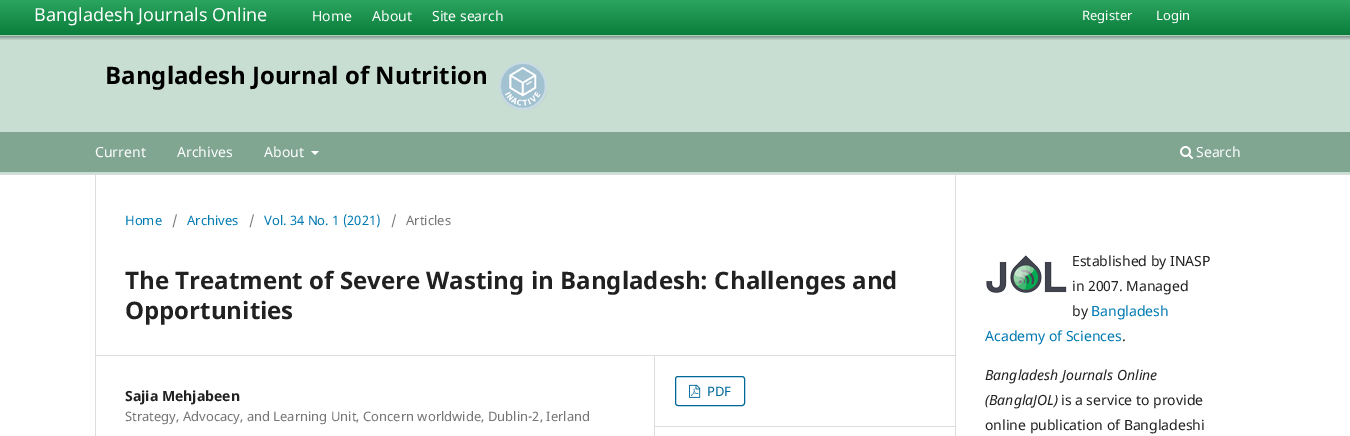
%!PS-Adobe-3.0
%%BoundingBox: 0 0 1350 436
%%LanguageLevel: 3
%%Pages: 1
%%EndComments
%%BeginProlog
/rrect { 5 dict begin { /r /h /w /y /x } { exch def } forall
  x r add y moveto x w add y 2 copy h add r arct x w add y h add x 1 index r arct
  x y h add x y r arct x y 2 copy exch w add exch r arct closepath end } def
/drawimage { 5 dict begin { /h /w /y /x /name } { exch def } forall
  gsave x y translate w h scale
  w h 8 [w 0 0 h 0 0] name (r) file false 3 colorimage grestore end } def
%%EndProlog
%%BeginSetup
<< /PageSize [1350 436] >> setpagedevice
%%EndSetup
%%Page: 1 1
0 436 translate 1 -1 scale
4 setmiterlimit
1 setgray
0 0 1350 436 rectfill
0.784 0.871 0.824 setrgbcolor
0 40 1350 134 rectfill
0.867 setgray
0 174 1350 1 rectfill
(images/1.raw) 0 0 1350 40 drawimage
0.502 0.651 0.573 setrgbcolor
0 132 1350 40 rectfill
1 setgray
newpath 311 151 moveto 319 151 lineto 315 155 lineto closepath fill
(images/2.raw) 1180 146 13 13 drawimage
(images/3.raw) 499 62 48 48 drawimage
0.867 setgray
95 355 860 1 rectfill
95 175 1 261 rectfill
654 356 1 80 rectfill
655 426 300 1 rectfill
0 0.404 0.596 setrgbcolor
675.5 376.5 69 29 2.5 rrect stroke
(images/4.raw) 689 384 12 14 drawimage
0.867 setgray
955 175 1 261 rectfill
(images/5.raw) 986 255 81 38 drawimage
/NotoSans-Regular [18 0 0 -18 0 0] selectfont
1 setgray
34 21 moveto (Bangladesh Journals Online) show
/NotoSans-Regular [14 0 0 -14 0 0] selectfont
312 21 moveto (Home) show
372 21 moveto (About) show
432 21 moveto (Site search) show
/NotoSans-Regular [13 0 0 -13 0 0] selectfont
1082 20 moveto (Register) show
1156 20 moveto (Login) show
/NotoSans-Regular [14 0 0 -14 0 0] selectfont
95 157 moveto (Current) show
177 157 moveto (Archives) show
264 157 moveto (About) show
1196 157 moveto (Search) show
/NotoSans-Bold [24 0 0 -24 0 0] selectfont
0 setgray
105 84 moveto (Bangladesh Journal of Nutrition) show
/NotoSans-Regular [13 0 0 -13 0 0] selectfont
0 0.478 0.698 setrgbcolor
125 225 moveto (Home) show
0.459 setgray
172 225 moveto (/) show
0 0.478 0.698 setrgbcolor
187 225 moveto (Archives) show
0.459 setgray
249 225 moveto (/) show
0 0.478 0.698 setrgbcolor
264 225 moveto (Vol. 34 No. 1 \(2021\)) show
0.459 setgray
391 225 moveto (/) show
406 225 moveto (Articles) show
/NotoSans-Bold [24 0 0 -24 0 0] selectfont
0.129 setgray
125 289 moveto (The Treatment of Severe Wasting in Bangladesh: Challenges and) show
125 319 moveto (Opportunities) show
/NotoSans-Bold [14 0 0 -14 0 0] selectfont
125 401 moveto (Sajia Mehjabeen) show
/NotoSans-Regular [13 0 0 -13 0 0] selectfont
0.459 setgray
125 421 moveto (Strategy, Advocacy, and Learning Unit, Concern worldwide, Dublin-2, Ierland) show
0 0.404 0.596 setrgbcolor
707 396 moveto (PDF) show
/NotoSans-Regular [14 0 0 -14 0 0] selectfont
0.129 setgray
1072 266 moveto (Established by INASP) show
1072 291 moveto (in 2007. Managed) show
1072 316 moveto (by) show
0 0.478 0.698 setrgbcolor
1091 316 moveto (Bangladesh) show
985 341 moveto (Academy of Sciences) show
0.129 setgray
1122 341 moveto (.) show
/NotoSans-Italic [14 0 0 -14 0 0] selectfont
985 380 moveto (Bangladesh Journals Online) show
985 405 moveto (\(BanglaJOL\)) show
/NotoSans-Regular [14 0 0 -14 0 0] selectfont
1061 405 moveto (is a service to provide) show
985 430 moveto (online publication of Bangladeshi) show
showpage
%%EOF
